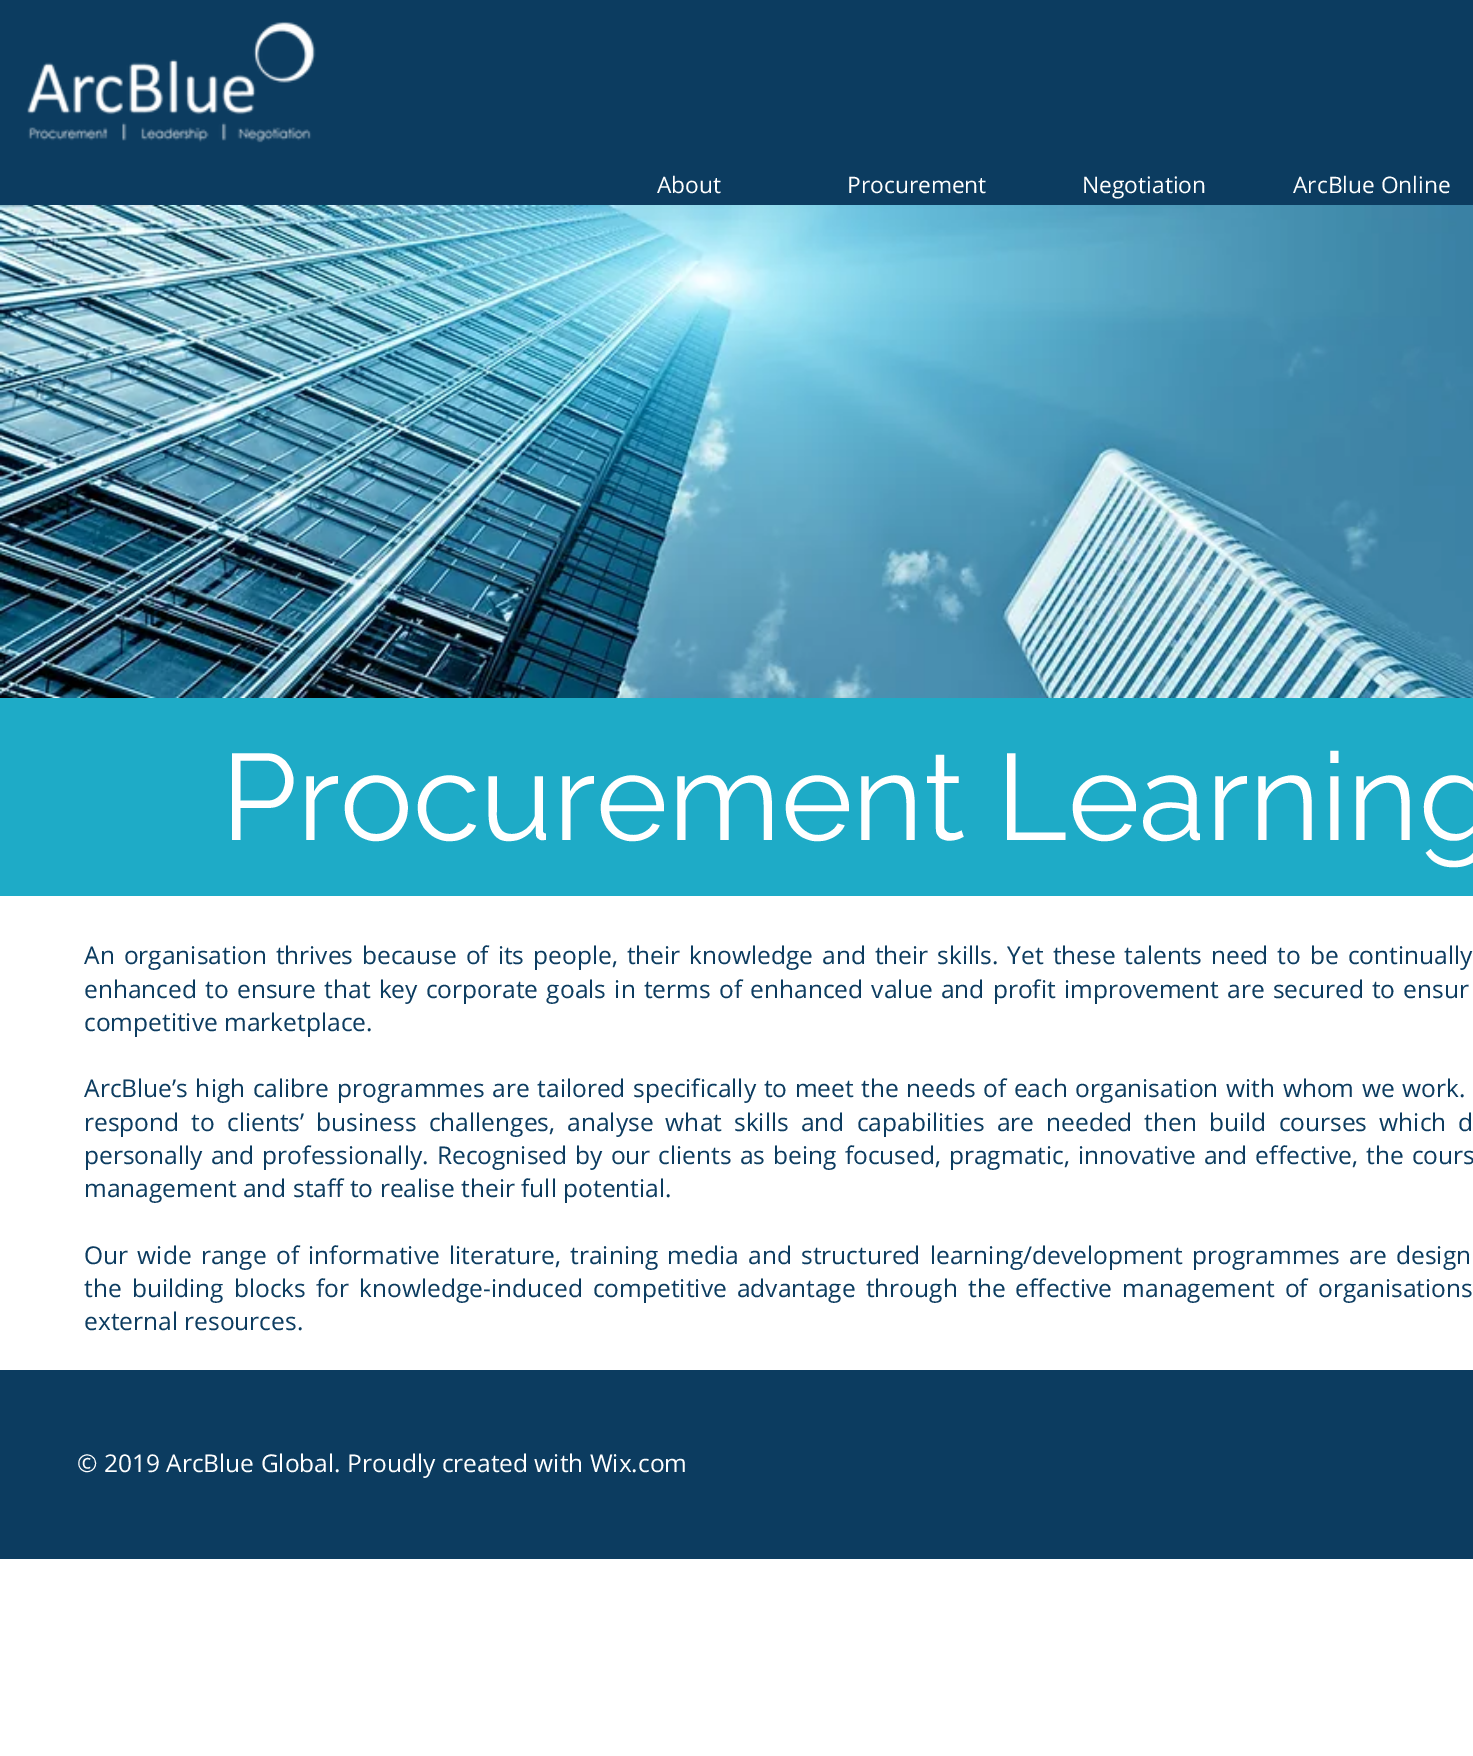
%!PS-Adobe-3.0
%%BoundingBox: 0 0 1473 1756
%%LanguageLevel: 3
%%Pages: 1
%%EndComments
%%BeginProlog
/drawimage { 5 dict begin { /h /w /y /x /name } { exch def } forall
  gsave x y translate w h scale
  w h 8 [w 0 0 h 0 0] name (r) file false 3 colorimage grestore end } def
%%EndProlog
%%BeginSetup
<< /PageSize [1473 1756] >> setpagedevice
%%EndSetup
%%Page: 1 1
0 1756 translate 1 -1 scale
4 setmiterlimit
1 setgray
0 0 1473 1756 rectfill
0.047 0.235 0.376 setrgbcolor
0 0 1473 205 rectfill
(images/1.raw) 27 21 289 122 drawimage
(images/2.raw) 0 205 1473 493 drawimage
0.118 0.671 0.78 setrgbcolor
0 698 1473 198 rectfill
0.047 0.235 0.376 setrgbcolor
0 1370 1473 189 rectfill
/OpenSans-Regular [22.75 0 0 -22.75 0 0] selectfont
1 setgray
657 193 moveto (About) show
847 193 moveto (Procurement) show
1082 193 moveto (Negotiation) show
1293 193 moveto (ArcBlue Online) show
/Raleway-Regular [122.5 0 0 -122.5 0 0] selectfont
221 840 moveto (Procurement Learning) show
/OpenSans-Regular [24.5 0 0 -24.5 0 0] selectfont
0.047 0.235 0.376 setrgbcolor
84 964 moveto 2.6 0 32 (An organisation thrives because of its people, their knowledge and their skills. Yet these talents need to be continually) widthshow
84 998 moveto 1.9 0 32 (enhanced to ensure that key corporate goals in terms of enhanced value and profit improvement are secured to ensur) widthshow
84 1031 moveto (competitive marketplace.) show
84 1097 moveto 1.25 0 32 (ArcBlue’s high calibre programmes are tailored specifically to meet the needs of each organisation with whom we work.) widthshow
84 1131 moveto 5.75 0 32 (respond to clients’ business challenges, analyse what skills and capabilities are needed then build courses which d) widthshow
84 1164 moveto 1.7 0 32 (personally and professionally. Recognised by our clients as being focused, pragmatic, innovative and effective, the cours) widthshow
84 1197 moveto (management and staff to realise their full potential.) show
84 1264 moveto 2.9 0 32 (Our wide range of informative literature, training media and structured learning/development programmes are design) widthshow
84 1297 moveto 3.75 0 32 (the building blocks for knowledge-induced competitive advantage through the effective management of organisations) widthshow
84 1330 moveto (external resources.) show
1 setgray
77 1472 moveto (© 2019 ArcBlue Global. Proudly created with Wix.com) show
showpage
%%EOF
